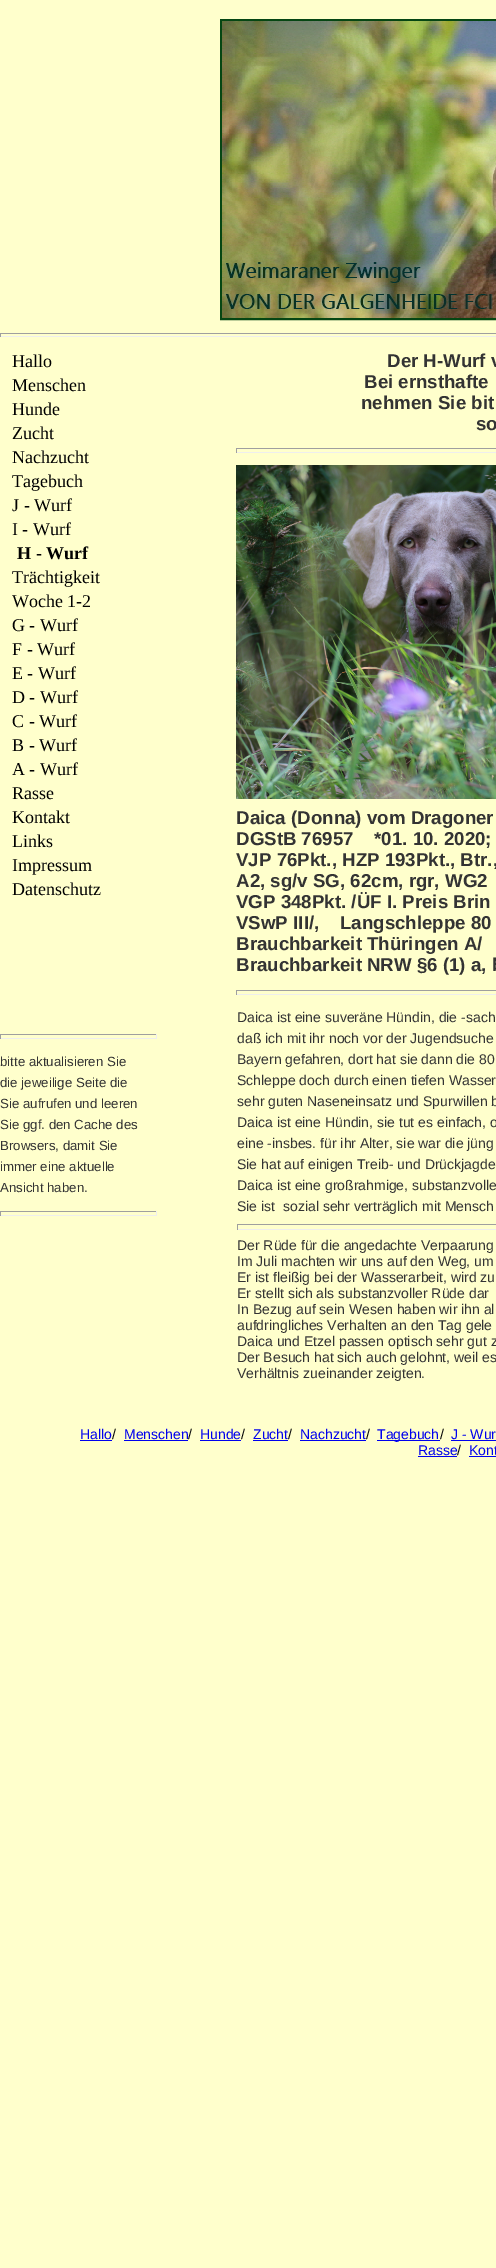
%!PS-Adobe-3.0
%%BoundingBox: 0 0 496 2268
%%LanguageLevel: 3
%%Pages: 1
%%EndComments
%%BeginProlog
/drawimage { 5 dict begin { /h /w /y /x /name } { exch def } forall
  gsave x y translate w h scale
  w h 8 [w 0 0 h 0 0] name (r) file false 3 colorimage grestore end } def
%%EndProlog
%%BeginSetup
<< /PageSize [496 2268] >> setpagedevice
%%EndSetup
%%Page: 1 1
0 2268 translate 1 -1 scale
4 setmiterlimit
1 1 0.8 setrgbcolor
0 0 496 2268 rectfill
0.024 0.275 0.075 setrgbcolor
2 setlinewidth
221 20 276 299 rectstroke
(images/1.raw) 222 21 274 297 drawimage
0.624 setgray
0 333 496 1 rectfill
0.933 setgray
0 336 496 1 rectfill
0.624 setgray
0 333 1 4 rectfill
0 1034 157 1 rectfill
0.933 setgray
156 1034 1 5 rectfill
0 1038 157 1 rectfill
0.624 setgray
0 1034 1 5 rectfill
0 1211 157 1 rectfill
0.933 setgray
156 1211 1 5 rectfill
0 1215 157 1 rectfill
0.624 setgray
0 1211 1 5 rectfill
236 448 260 1 rectfill
0.933 setgray
236 452 260 1 rectfill
0.624 setgray
236 448 1 5 rectfill
(images/2.raw) 236 465 260 334 drawimage
236 990 260 1 rectfill
0.933 setgray
236 994 260 1 rectfill
0.624 setgray
236 990 1 5 rectfill
237 1224 259 1 rectfill
0.933 setgray
237 1229 259 1 rectfill
0.624 setgray
237 1224 1 6 rectfill
0 0 0.933 setrgbcolor
80 1440 32 1 rectfill
124 1440 64 1 rectfill
200 1440 41 1 rectfill
253 1440 35 1 rectfill
300 1440 66 1 rectfill
377 1440 63 1 rectfill
451 1440 45 1 rectfill
418 1456 39 1 rectfill
469 1456 27 1 rectfill
/LiberationSerif-Regular [18 0 0 -18 0 0] selectfont
0 setgray
12 367 moveto (Hallo) show
12 391 moveto (Menschen) show
12 415 moveto (Hunde) show
12 439 moveto (Zucht) show
12 463 moveto (Nachzucht) show
12 487 moveto (Tagebuch) show
12 511 moveto (J - Wurf) show
12 535 moveto (I - Wurf) show
/LiberationSerif-Bold [18 0 0 -18 0 0] selectfont
17 559 moveto (H - Wurf) show
/LiberationSerif-Regular [18 0 0 -18 0 0] selectfont
12 583 moveto (Trächtigkeit) show
12 607 moveto (Woche 1-2) show
12 631 moveto (G - Wurf) show
12 655 moveto (F - Wurf) show
12 679 moveto (E - Wurf) show
12 703 moveto (D - Wurf) show
12 727 moveto (C - Wurf) show
12 751 moveto (B - Wurf) show
12 775 moveto (A - Wurf) show
12 799 moveto (Rasse) show
12 823 moveto (Kontakt) show
12 847 moveto (Links) show
12 871 moveto (Impressum) show
12 895 moveto (Datenschutz) show
/LiberationSans-Regular [13.25 0 0 -13.25 0 0] selectfont
0.2 setgray
0 1066 moveto (bitte aktualisieren Sie) show
0 1087 moveto (die jeweilige Seite die) show
0 1108 moveto (Sie aufrufen und leeren) show
0 1129 moveto (Sie ggf. den Cache des) show
0 1150 moveto (Browsers, damit Sie) show
0 1171 moveto (immer eine aktuelle) show
0 1192 moveto (Ansicht haben.) show
/LiberationSans-Bold [18.7 0 0 -18.7 0 0] selectfont
387 367 moveto (Der H-Wurf v) show
364 388 moveto (Bei ernsthafte) show
361 409 moveto (nehmen Sie bit) show
476 430 moveto (so) show
236 824 moveto (Daica \(Donna\) vom Dragoner) show
236 845 moveto (DGStB 76957    *01. 10. 2020;) show
236 866 moveto (VJP 76Pkt., HZP 193Pkt., Btr.,) show
236 887 moveto (A2, sg/v SG, 62cm, rgr, WG2) show
236 908 moveto (VGP 348Pkt. /ÜF I. Preis Brin) show
236 929 moveto (VSwP III/,    Langschleppe 80) show
236 950 moveto (Brauchbarkeit Thüringen A/) show
236 971 moveto (Brauchbarkeit NRW §6 \(1\) a, b) show
/LiberationSans-Regular [14 0 0 -14 0 0] selectfont
237 1022 moveto (Daica ist eine suveräne Hündin, die -sach) show
237 1043 moveto (daß ich mit ihr noch vor der Jugendsuche) show
237 1064 moveto (Bayern gefahren, dort hat sie dann die 80) show
237 1085 moveto (Schleppe doch durch einen tiefen Wasser) show
237 1106 moveto (sehr guten Naseneinsatz und Spurwillen b) show
237 1127 moveto (Daica ist eine Hündin, sie tut es einfach, o) show
237 1148 moveto (eine -insbes. für ihr Alter, sie war die jüng) show
237 1169 moveto (Sie hat auf einigen Treib- und Drückjagde) show
237 1190 moveto (Daica ist eine großrahmige, substanzvolle) show
237 1211 moveto (Sie ist  sozial sehr verträglich mit Mensch) show
237 1250 moveto (Der Rüde für die angedachte Verpaarung) show
237 1266 moveto (Im Juli machten wir uns auf den Weg, um) show
237 1282 moveto (Er ist fleißig bei der Wasserarbeit, wird zu) show
237 1298 moveto (Er stellt sich als substanzvoller Rüde dar) show
237 1314 moveto (In Bezug auf sein Wesen haben wir ihn al) show
237 1330 moveto (aufdringliches Verhalten an den Tag gele) show
237 1346 moveto (Daica und Etzel passen optisch sehr gut z) show
237 1362 moveto (Der Besuch hat sich auch gelohnt, weil es) show
237 1378 moveto (Verhältnis zueinander zeigten.) show
0 0 0.933 setrgbcolor
80 1439 moveto (Hallo) show
0 setgray
112 1439 moveto (/) show
0 0 0.933 setrgbcolor
124 1439 moveto (Menschen) show
0 setgray
188 1439 moveto (/) show
0 0 0.933 setrgbcolor
200 1439 moveto (Hunde) show
0 setgray
241 1439 moveto (/) show
0 0 0.933 setrgbcolor
253 1439 moveto (Zucht) show
0 setgray
288 1439 moveto (/) show
0 0 0.933 setrgbcolor
300 1439 moveto (Nachzucht) show
0 setgray
366 1439 moveto (/) show
0 0 0.933 setrgbcolor
377 1439 moveto (Tagebuch) show
0 setgray
440 1439 moveto (/) show
0 0 0.933 setrgbcolor
451 1439 moveto (J - Wur) show
418 1455 moveto (Rasse) show
0 setgray
457 1455 moveto (/) show
0 0 0.933 setrgbcolor
469 1455 moveto (Kont) show
showpage
%%EOF
